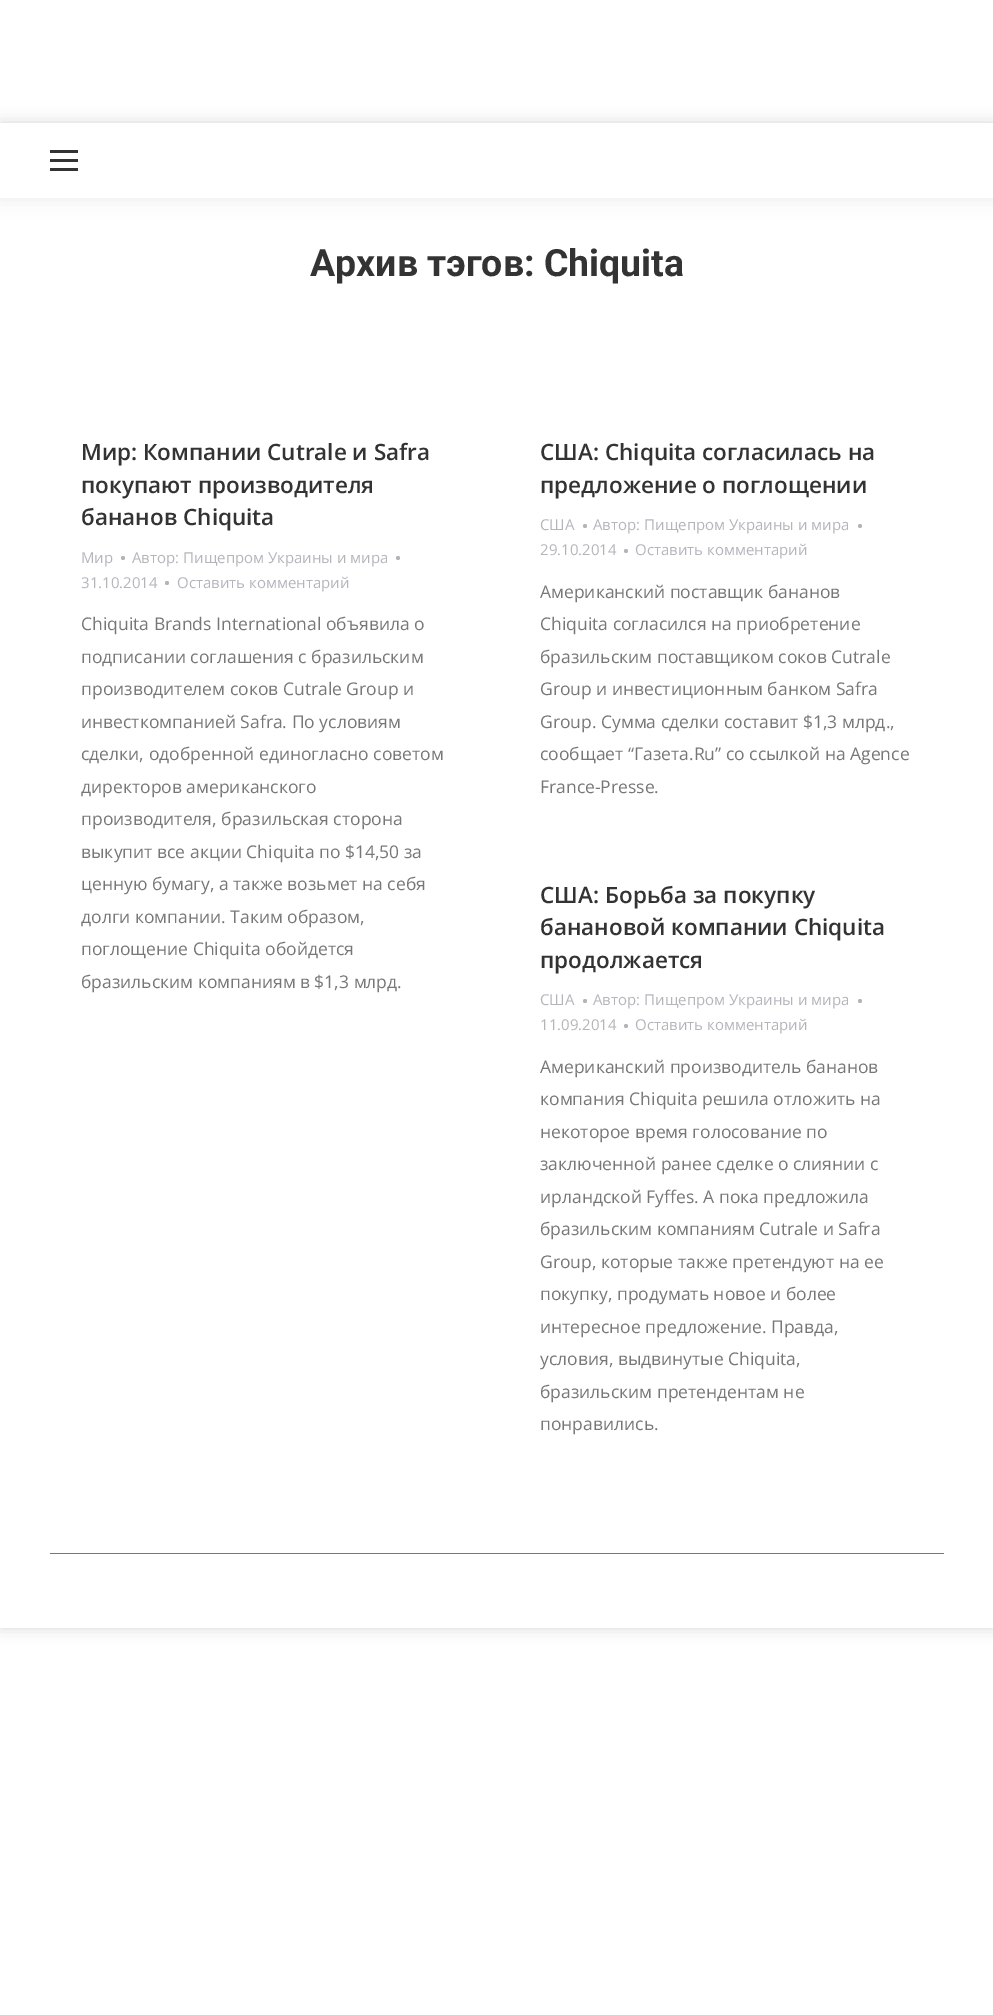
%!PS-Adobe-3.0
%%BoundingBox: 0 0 993 2015
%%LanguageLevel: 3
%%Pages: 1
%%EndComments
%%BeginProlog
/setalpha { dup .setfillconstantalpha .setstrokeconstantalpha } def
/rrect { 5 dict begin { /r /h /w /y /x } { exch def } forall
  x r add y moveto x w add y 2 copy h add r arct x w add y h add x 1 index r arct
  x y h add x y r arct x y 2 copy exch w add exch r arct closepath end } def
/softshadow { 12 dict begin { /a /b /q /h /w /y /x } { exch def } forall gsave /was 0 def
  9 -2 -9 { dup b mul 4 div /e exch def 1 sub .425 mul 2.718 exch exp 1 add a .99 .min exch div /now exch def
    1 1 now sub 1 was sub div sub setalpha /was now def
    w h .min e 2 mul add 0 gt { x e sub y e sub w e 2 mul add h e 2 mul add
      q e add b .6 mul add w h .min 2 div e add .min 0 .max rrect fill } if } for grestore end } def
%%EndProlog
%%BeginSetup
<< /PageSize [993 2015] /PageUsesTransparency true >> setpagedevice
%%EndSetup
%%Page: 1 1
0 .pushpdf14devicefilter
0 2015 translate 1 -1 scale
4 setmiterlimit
1 setgray
0 0 993 2015 rectfill
0 setgray
0 123 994 1505 0 7.5 0.15 softshadow
1 setgray
0 198 993 1430 rectfill
gsave
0 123 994 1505 rectclip
0 setgray
-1 121 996 78 0 9.5 0.07 softshadow
grestore
0 123 993 75 rectfill
0.2 setgray
50 159 28 3 rectfill
50 150 28 3 rectfill
50 168 28 3 rectfill
0.706 0.71 0.733 setrgbcolor
newpath 123 558 2 0 360 arc closepath fill
newpath 398 558 2 0 360 arc closepath fill
newpath 167 583 2 0 360 arc closepath fill
newpath 585 526 2 0 360 arc closepath fill
newpath 860 526 2 0 360 arc closepath fill
newpath 626 551 2 0 360 arc closepath fill
newpath 585 1001 2 0 360 arc closepath fill
newpath 860 1001 2 0 360 arc closepath fill
newpath 626 1026 2 0 360 arc closepath fill
0.467 setgray
50 1553 894 1 rectfill
/Roboto-Bold [37.5 0 0 -37.5 0 0] selectfont
0.2 setgray
310 276 moveto (Архив тэгов: Chiquita) show
/OpenSans-SemiBold [22.5 0 0 -22.5 0 0] selectfont
81 460 moveto (Мир: Компании Cutrale и Safra) show
81 493 moveto (покупают производителя) show
81 525 moveto (бананов Chiquita) show
/OpenSans-Regular [15 0 0 -15 0 0] selectfont
0.706 0.71 0.733 setrgbcolor
81 563 moveto (Мир) show
132 563 moveto (Автор: Пищепром Украины и мира) show
81 588 moveto (31.10.2014) show
177 588 moveto (Оставить комментарий) show
/OpenSans-Regular [17.5 0 0 -17.5 0 0] selectfont
0.467 setgray
81 630 moveto (Chiquita Brands International объявила о) show
81 663 moveto (подписании соглашения с бразильским) show
81 695 moveto (производителем соков Cutrale Group и) show
81 728 moveto (инвесткомпанией Safra. По условиям) show
81 760 moveto (сделки, одобренной единогласно советом) show
81 793 moveto (директоров американского) show
81 825 moveto (производителя, бразильская сторона) show
81 858 moveto (выкупит все акции Chiquita по $14,50 за) show
81 890 moveto (ценную бумагу, а также возьмет на себя) show
81 923 moveto (долги компании. Таким образом,) show
81 955 moveto (поглощение Chiquita обойдется) show
81 988 moveto (бразильским компаниям в $1,3 млрд.) show
/OpenSans-SemiBold [22.5 0 0 -22.5 0 0] selectfont
0.2 setgray
540 460 moveto (США: Chiquita согласилась на) show
540 493 moveto (предложение о поглощении) show
/OpenSans-Regular [15 0 0 -15 0 0] selectfont
0.706 0.71 0.733 setrgbcolor
540 530 moveto (США) show
593 530 moveto (Автор: Пищепром Украины и мира) show
540 555 moveto (29.10.2014) show
635 555 moveto (Оставить комментарий) show
/OpenSans-Regular [17.5 0 0 -17.5 0 0] selectfont
0.467 setgray
540 598 moveto (Американский поставщик бананов) show
540 630 moveto (Chiquita согласился на приобретение) show
540 663 moveto (бразильским поставщиком соков Cutrale) show
540 695 moveto (Group и инвестиционным банком Safra) show
540 728 moveto (Group. Сумма сделки составит $1,3 млрд.,) show
540 760 moveto (сообщает “Газета.Ru” со ссылкой на Agence) show
540 793 moveto (France-Presse.) show
/OpenSans-SemiBold [22.5 0 0 -22.5 0 0] selectfont
0.2 setgray
540 903 moveto (США: Борьба за покупку) show
540 935 moveto (банановой компании Chiquita) show
540 968 moveto (продолжается) show
/OpenSans-Regular [15 0 0 -15 0 0] selectfont
0.706 0.71 0.733 setrgbcolor
540 1005 moveto (США) show
593 1005 moveto (Автор: Пищепром Украины и мира) show
540 1030 moveto (11.09.2014) show
635 1030 moveto (Оставить комментарий) show
/OpenSans-Regular [17.5 0 0 -17.5 0 0] selectfont
0.467 setgray
540 1073 moveto (Американский производитель бананов) show
540 1105 moveto (компания Chiquita решила отложить на) show
540 1138 moveto (некоторое время голосование по) show
540 1170 moveto (заключенной ранее сделке о слиянии с) show
540 1203 moveto (ирландской Fyffes. А пока предложила) show
540 1235 moveto (бразильским компаниям Cutrale и Safra) show
540 1268 moveto (Group, которые также претендуют на ее) show
540 1300 moveto (покупку, продумать новое и более) show
540 1333 moveto (интересное предложение. Правда,) show
540 1365 moveto (условия, выдвинутые Chiquita,) show
540 1398 moveto (бразильским претендентам не) show
540 1430 moveto (понравились.) show
.poppdf14devicefilter showpage
%%EOF
